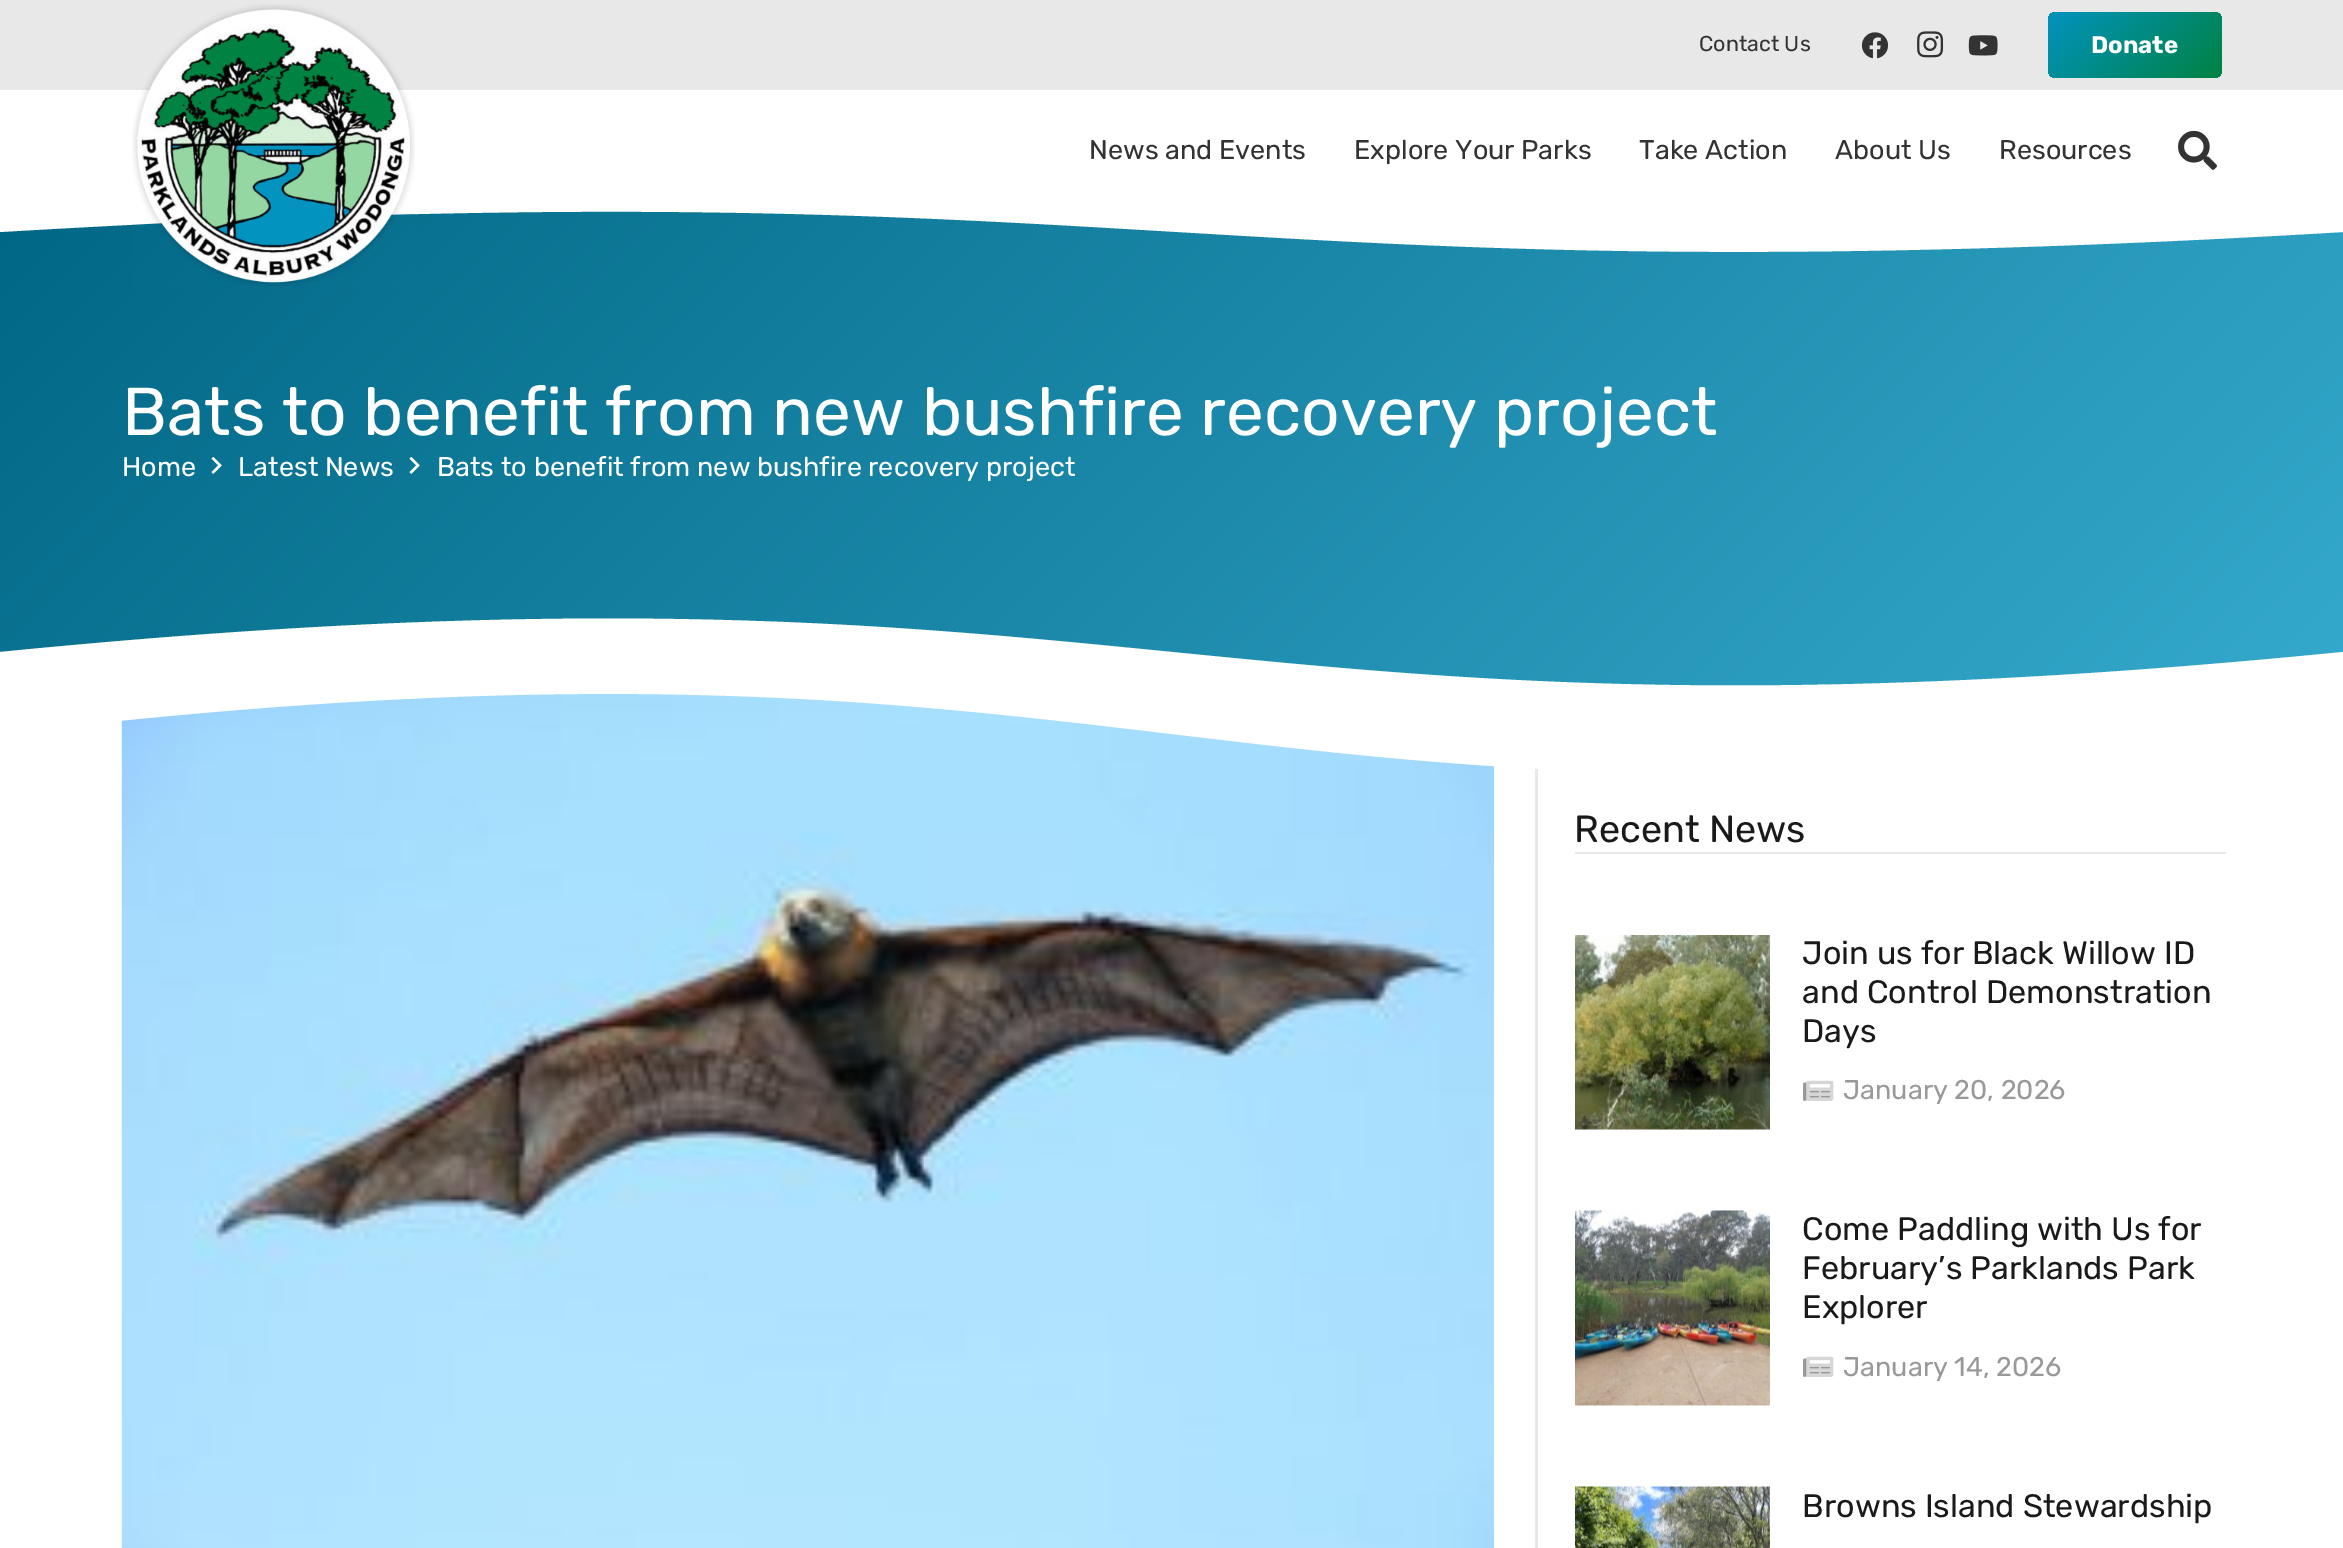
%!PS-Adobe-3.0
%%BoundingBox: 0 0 2343 1548
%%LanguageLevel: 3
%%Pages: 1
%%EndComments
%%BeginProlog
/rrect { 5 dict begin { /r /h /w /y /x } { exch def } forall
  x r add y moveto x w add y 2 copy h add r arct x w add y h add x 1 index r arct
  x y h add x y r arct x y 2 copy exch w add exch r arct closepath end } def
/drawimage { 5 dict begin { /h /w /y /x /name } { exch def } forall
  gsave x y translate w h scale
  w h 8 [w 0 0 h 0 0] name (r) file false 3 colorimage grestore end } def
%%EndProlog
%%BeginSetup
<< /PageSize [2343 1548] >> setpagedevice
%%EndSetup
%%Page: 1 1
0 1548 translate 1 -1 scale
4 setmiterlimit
1 setgray
0 0 2343 1548 rectfill
0.91 setgray
0 0 2343 90 rectfill
(images/1.raw) 1861 32 28 27 drawimage
(images/2.raw) 1917 31 27 27 drawimage
(images/3.raw) 1968 35 30 21 drawimage
gsave 2048 12 174 66 8 rrect clip newpath
<< /ShadingType 2 /ColorSpace /DeviceRGB /Coords [2075 -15 2195 105] /Extend [true true] /Function << /FunctionType 2 /Domain [0 1] /C0 [0.008 0.576 0.749] /C1 [0 0.51 0.259] /N 1 >> >> shfill grestore
gsave newpath 0 211 moveto 2343 211 lineto 2343 686 lineto 0 686 lineto closepath clip newpath
<< /ShadingType 2 /ColorSpace /DeviceRGB /Coords [466 -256 1877 1155] /Extend [true true] /Function << /FunctionType 2 /Domain [0 1] /C0 [0.004 0.404 0.525] /C1 [0.208 0.663 0.8] /N 1 >> >> shfill grestore
1 setgray
newpath 2343 232 moveto 1172 301 1172 162 0 232 curveto 0 209 lineto 2343 209 lineto closepath fill
(images/4.raw) 132 4 283 283 drawimage
(images/5.raw) 2178 130 39 40 drawimage
(images/6.raw) 211 457 11 17 drawimage
(images/7.raw) 409 457 11 17 drawimage
newpath 0 652 moveto 1172 536 1172 768 2343 652 curveto 2343 691 lineto 0 691 lineto closepath fill
(images/8.raw) 121 693 1373 855 drawimage
0.91 setgray
1535 768 3 780 rectfill
1 setgray
newpath 2343 734 moveto 1172 873 1172 595 0 734 curveto 0 688 lineto 2343 688 lineto closepath fill
0.91 setgray
1575 852 651 2 rectfill
(images/9.raw) 1575 935 195 195 drawimage
(images/11.raw) 1803 1082 27 19 drawimage
(images/10.raw) 1806 1080 28 21 drawimage
(images/12.raw) 1575 1210 195 196 drawimage
(images/11.raw) 1803 1358 27 19 drawimage
(images/10.raw) 1806 1356 28 21 drawimage
(images/13.raw) 1575 1486 195 62 drawimage
/Rubik-Regular [21.5 0 0 -21.5 0 0] selectfont
0.2 setgray
1699 51 moveto (Contact Us) show
/Rubik-Bold [24 0 0 -24 0 0] selectfont
1 setgray
2091 53 moveto (Donate) show
/Rubik-Regular [27 0 0 -27 0 0] selectfont
0.2 setgray
1089 159 moveto (News and Events) show
1354 159 moveto (Explore Your Parks) show
1639 159 moveto (Take Action) show
1835 159 moveto (About Us) show
1999 159 moveto (Resources) show
/Rubik-Regular [67.5 0 0 -67.5 0 0] selectfont
1 setgray
122 435 moveto (Bats to benefit from new bushfire recovery project) show
/Rubik-Regular [27 0 0 -27 0 0] selectfont
122 476 moveto (Home) show
238 476 moveto (Latest News) show
437 476 moveto (Bats to benefit from new bushfire recovery project) show
/Rubik-Regular [37.75 0 0 -37.75 0 0] selectfont
0.102 setgray
1574 842 moveto (Recent News) show
/Rubik-Regular [32.4 0 0 -32.4 0 0] selectfont
1802 964 moveto (Join us for Black Willow ID) show
1802 1003 moveto (and Control Demonstration) show
1802 1042 moveto (Days) show
/Rubik-Regular [27 0 0 -27 0 0] selectfont
0.6 setgray
1843 1099 moveto (January 20, 2026) show
/Rubik-Regular [32.4 0 0 -32.4 0 0] selectfont
0.102 setgray
1802 1240 moveto (Come Paddling with Us for) show
1802 1279 moveto (February’s Parklands Park) show
1802 1318 moveto (Explorer) show
/Rubik-Regular [27 0 0 -27 0 0] selectfont
0.6 setgray
1843 1376 moveto (January 14, 2026) show
/Rubik-Regular [32.4 0 0 -32.4 0 0] selectfont
0.102 setgray
1802 1517 moveto (Browns Island Stewardship) show
showpage
%%EOF
